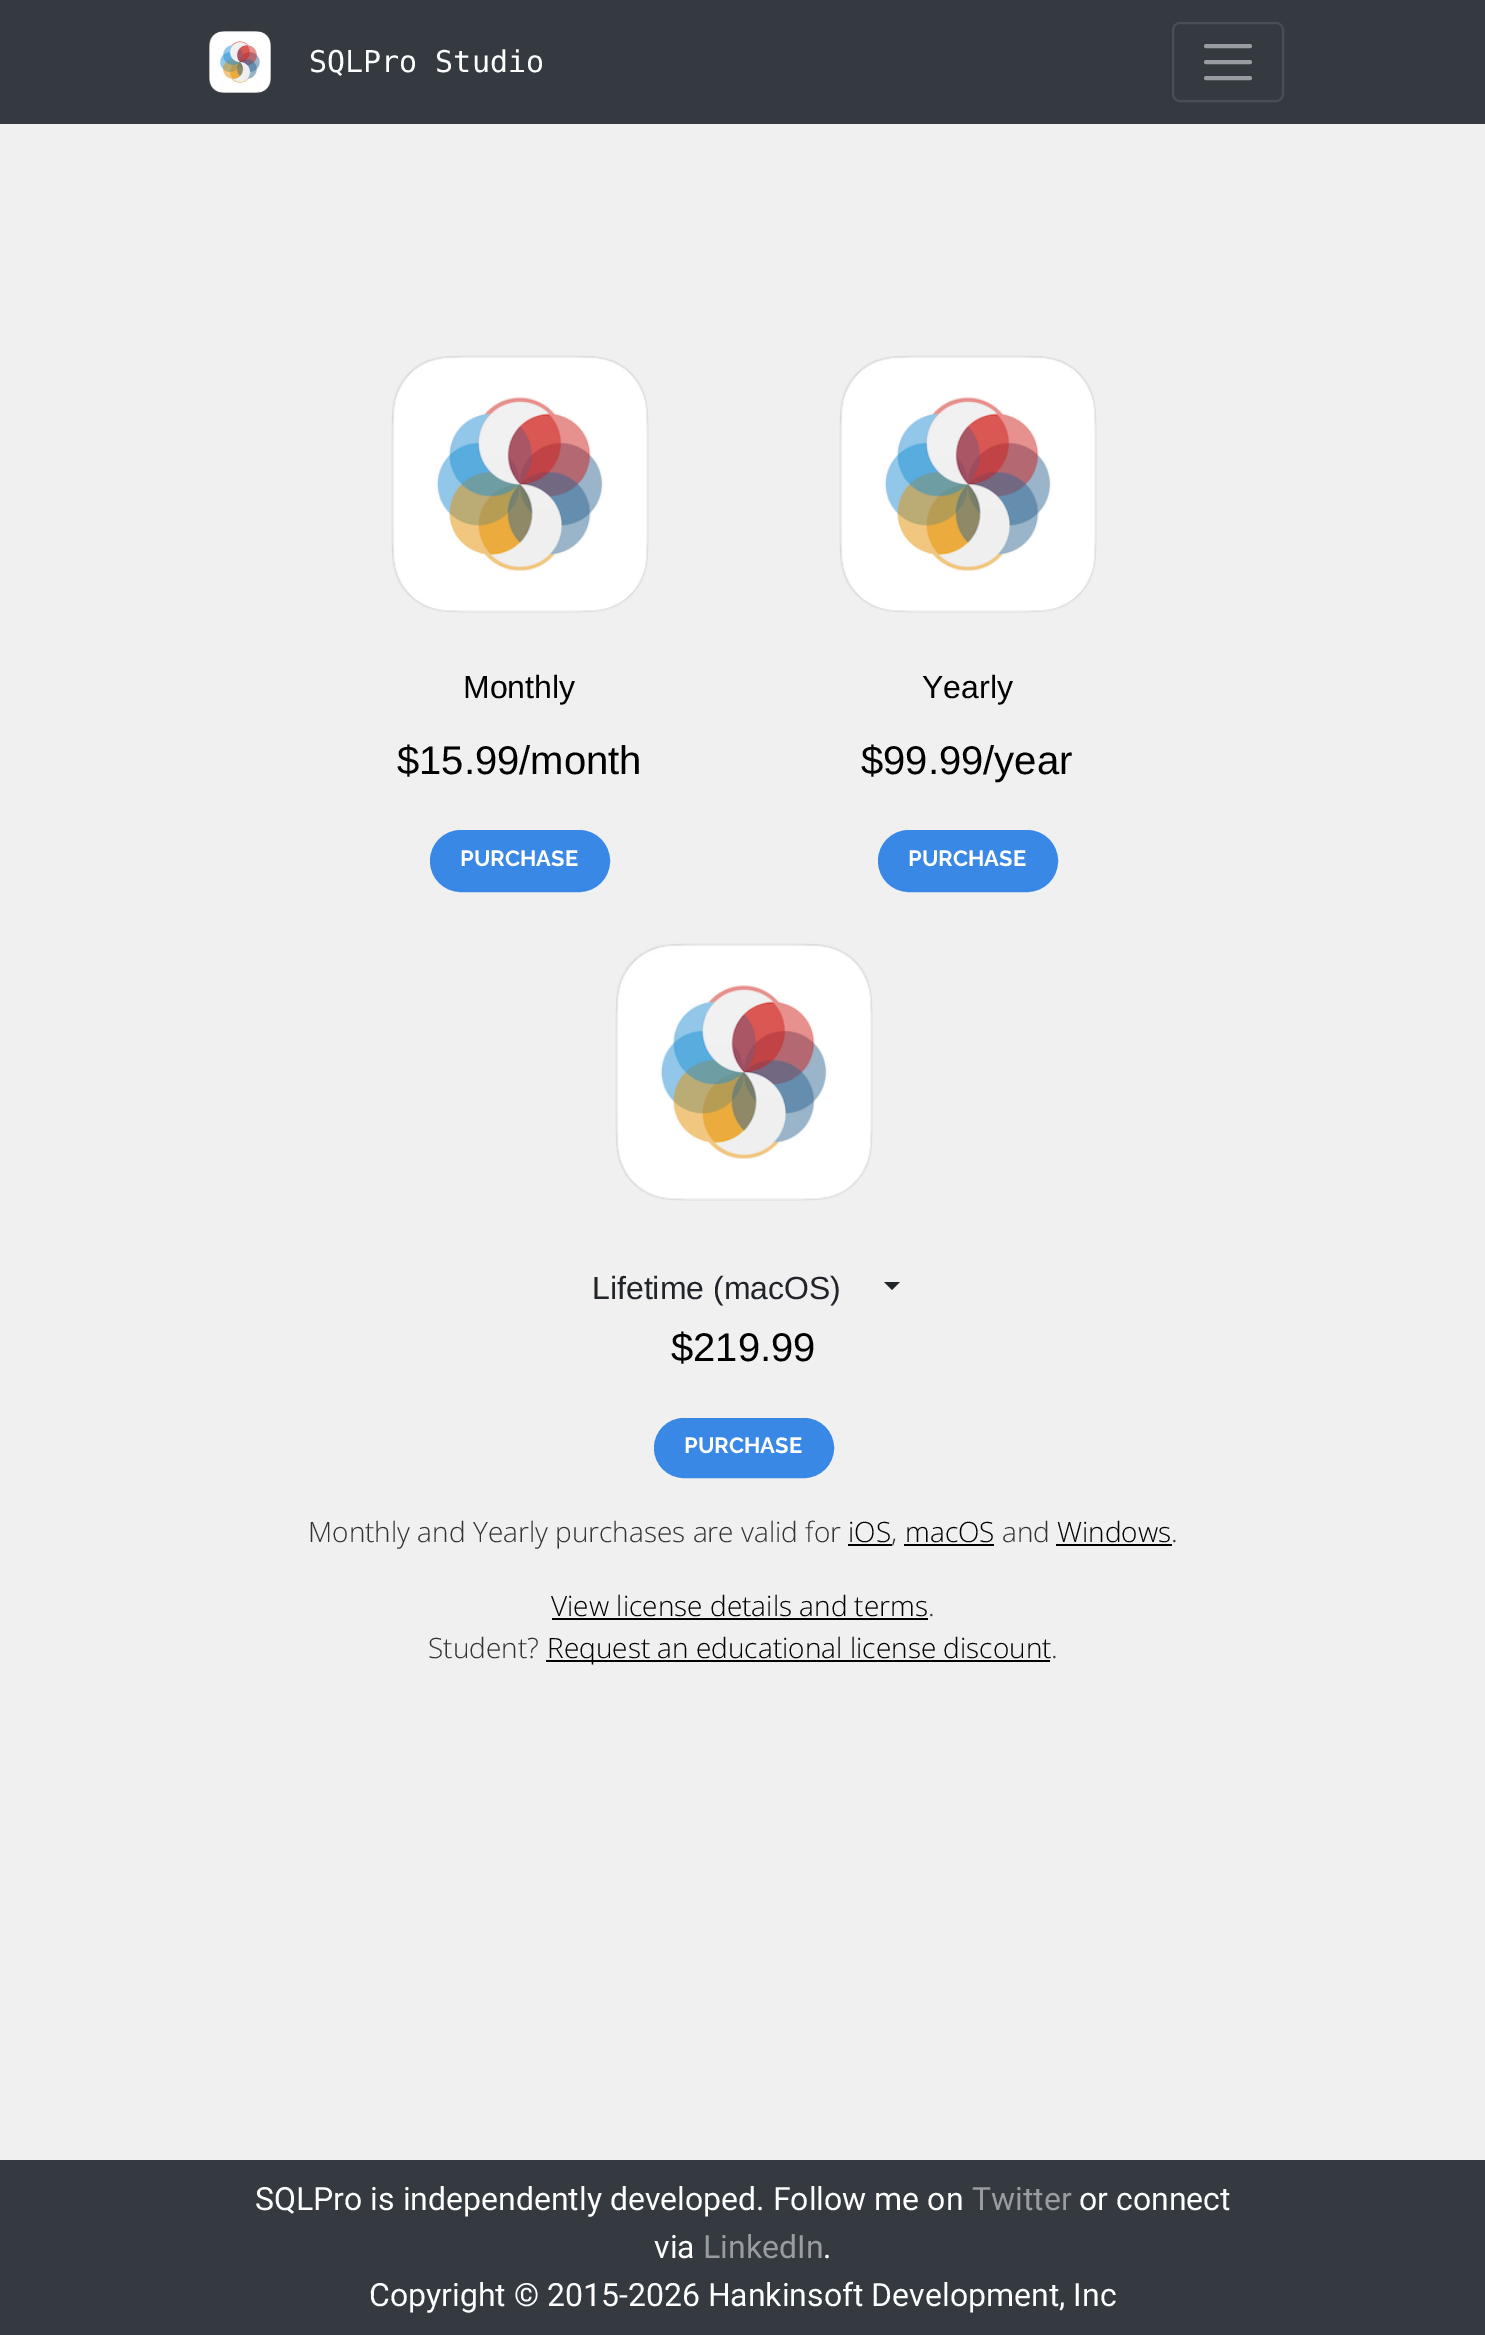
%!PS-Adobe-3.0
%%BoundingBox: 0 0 1485 2335
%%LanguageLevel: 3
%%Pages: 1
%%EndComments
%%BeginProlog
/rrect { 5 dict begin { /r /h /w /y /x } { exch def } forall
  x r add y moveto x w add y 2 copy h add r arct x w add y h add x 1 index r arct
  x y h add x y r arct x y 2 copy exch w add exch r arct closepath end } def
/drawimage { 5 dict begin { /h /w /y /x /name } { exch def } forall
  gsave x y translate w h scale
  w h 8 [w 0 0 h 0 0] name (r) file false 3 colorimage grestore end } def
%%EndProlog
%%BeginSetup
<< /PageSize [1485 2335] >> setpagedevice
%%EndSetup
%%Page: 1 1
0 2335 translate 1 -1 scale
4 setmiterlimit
0.941 setgray
0 0 1485 2335 rectfill
0.204 0.227 0.251 setrgbcolor
0 0 1485 124 rectfill
(images/1.raw) 209 31 62 62 drawimage
0.282 0.306 0.325 setrgbcolor
2 setlinewidth
1173 23 110 78 7 rrect stroke
0.604 0.616 0.627 setrgbcolor
4 setlinewidth
1 setlinecap
newpath 1206 46 moveto 1250 46 lineto 1206 62 moveto 1250 62 lineto 1206 78 moveto 1250 78 lineto stroke
(images/2.raw) 391 355 258 258 drawimage
0.224 0.533 0.902 setrgbcolor
432 832 176 58 29 rrect gsave fill grestore
0 setlinecap
stroke
(images/2.raw) 839 355 258 258 drawimage
880 832 176 58 29 rrect gsave fill grestore
stroke
(images/2.raw) 615 943 258 258 drawimage
0.129 0.145 0.161 setrgbcolor
newpath 884 1282 moveto 900 1282 lineto 892 1290 lineto closepath fill
0.224 0.533 0.902 setrgbcolor
656 1420 176 56 28 rrect gsave fill grestore
stroke
0 setgray
848 1544 44 2 rectfill
904 1544 90 2 rectfill
1056 1544 116 2 rectfill
552 1618 376 2 rectfill
546 1660 504 2 rectfill
0.204 0.227 0.251 setrgbcolor
0 2160 1485 175 rectfill
/DejaVuSansMono-Regular [30 0 0 -30 0 0] selectfont
1 setgray
309 72 moveto (SQLPro Studio) show
/LiberationSans-Regular [32 0 0 -32 0 0] selectfont
0 setgray
463 698 moveto (Monthly) show
/LiberationSans-Regular [40 0 0 -40 0 0] selectfont
397 774 moveto ($15.99/month) show
/Raleway-Bold [22 0 0 -22 0 0] selectfont
1 setgray
460 866 moveto (PURCHASE) show
/LiberationSans-Regular [32 0 0 -32 0 0] selectfont
0 setgray
922 698 moveto (Yearly) show
/LiberationSans-Regular [40 0 0 -40 0 0] selectfont
861 774 moveto ($99.99/year) show
/Raleway-Bold [22 0 0 -22 0 0] selectfont
1 setgray
908 866 moveto (PURCHASE) show
/LiberationSans-Regular [32 0 0 -32 0 0] selectfont
0.129 0.145 0.161 setrgbcolor
592 1299 moveto (Lifetime \(macOS\)) show
/LiberationSans-Regular [40 0 0 -40 0 0] selectfont
0 setgray
671 1361 moveto ($219.99) show
/Raleway-Bold [22 0 0 -22 0 0] selectfont
1 setgray
684 1453 moveto (PURCHASE) show
/OpenSans-Light [28 0 0 -28 0 0] selectfont
0.2 setgray
308 1542 moveto (Monthly and Yearly purchases are valid for) show
0 setgray
848 1542 moveto (iOS) show
0.2 setgray
891 1542 moveto (,) show
0 setgray
905 1542 moveto (macOS) show
0.2 setgray
1002 1542 moveto (and) show
0 setgray
1057 1542 moveto (Windows) show
0.2 setgray
1171 1542 moveto (.) show
0 setgray
551 1616 moveto (View license details and terms) show
0.2 setgray
928 1616 moveto (.) show
428 1658 moveto (Student?) show
0 setgray
547 1658 moveto (Request an educational license discount) show
0.2 setgray
1051 1658 moveto (.) show
/Roboto-Regular [32 0 0 -32 0 0] selectfont
1 setgray
255 2210 moveto (SQLPro is independently developed. Follow me on) show
0.604 0.616 0.627 setrgbcolor
972 2210 moveto (Twitter) show
1 setgray
1079 2210 moveto (or connect) show
654 2258 moveto (via) show
0.604 0.616 0.627 setrgbcolor
703 2258 moveto (LinkedIn) show
1 setgray
823 2258 moveto (.) show
369 2306 moveto (Copyright © 2015-2026 Hankinsoft Development, Inc) show
showpage
%%EOF
